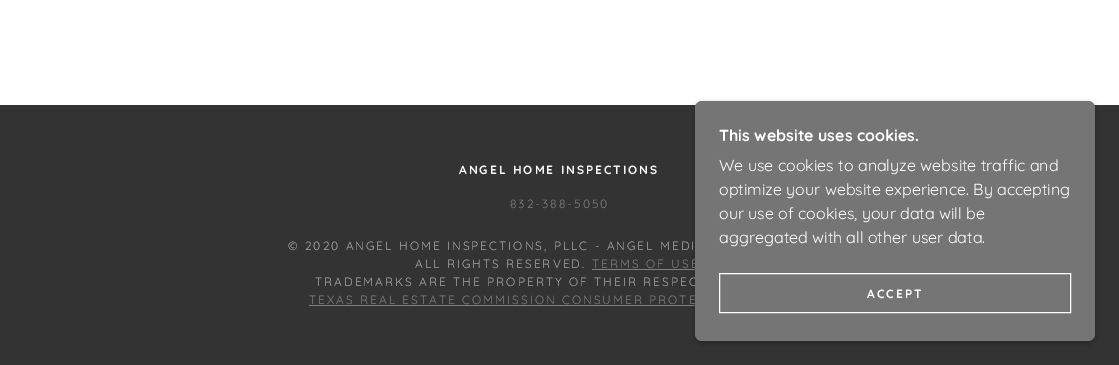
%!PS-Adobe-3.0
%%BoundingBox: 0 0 1119 365
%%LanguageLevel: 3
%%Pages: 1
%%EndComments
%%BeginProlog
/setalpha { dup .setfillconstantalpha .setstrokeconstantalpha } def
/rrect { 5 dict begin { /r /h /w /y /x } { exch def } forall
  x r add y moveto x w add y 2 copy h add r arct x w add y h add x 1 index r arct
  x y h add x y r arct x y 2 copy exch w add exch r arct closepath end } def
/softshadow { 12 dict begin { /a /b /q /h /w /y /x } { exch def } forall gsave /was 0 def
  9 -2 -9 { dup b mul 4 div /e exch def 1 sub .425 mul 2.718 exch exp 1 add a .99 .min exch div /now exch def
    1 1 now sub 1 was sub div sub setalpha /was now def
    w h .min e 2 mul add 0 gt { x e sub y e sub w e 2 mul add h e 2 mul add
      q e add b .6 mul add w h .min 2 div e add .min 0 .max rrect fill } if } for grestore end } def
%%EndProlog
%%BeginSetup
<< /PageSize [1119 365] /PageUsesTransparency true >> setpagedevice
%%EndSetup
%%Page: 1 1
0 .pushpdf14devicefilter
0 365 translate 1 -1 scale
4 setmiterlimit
0.2 setgray
0 0 1119 365 rectfill
1 setgray
0 0 1119 105 rectfill
0.498 0.502 0.502 setrgbcolor
592 269 107 1 rectfill
309 305 386 1 rectfill
0 setgray
695 103 400 240 7 3 0.3 softshadow
/Quicksand-Bold [12 0 0 -12 0 0] selectfont
0.969 setgray
459 174 moveto 2 0 (ANGEL HOME INSPECTIONS) ashow
/Quicksand-Regular [12 0 0 -12 0 0] selectfont
0.498 0.502 0.502 setrgbcolor
510 208 moveto 2 0 (832-388-5050) ashow
0.663 setgray
288 250 moveto 2 0 (© 2020 ANGEL HOME INSPECTIONS, PLLC - ANGEL MEDI) ashow
415 268 moveto 2 0 (ALL RIGHTS RESERVED.) ashow
0.498 0.502 0.502 setrgbcolor
592 268 moveto 2 0 (TERMS OF USE) ashow
0.663 setgray
315 286 moveto 2 0 (TRADEMARKS ARE THE PROPERTY OF THEIR RESPEC) ashow
0.498 0.502 0.502 setrgbcolor
309 304 moveto 2 0 (TEXAS REAL ESTATE COMMISSION CONSUMER PROTE) ashow
0.459 setgray
695 101 400 240 7 rrect fill
/Quicksand-Bold [16 0 0 -16 0 0] selectfont
1 setgray
719 141 moveto (This website uses cookies.) show
/Quicksand-Regular [16 0 0 -16 0 0] selectfont
719 171 moveto (We use cookies to analyze website traffic and) show
719 195 moveto (optimize your website experience. By accepting) show
719 219 moveto (our use of cookies, your data will be) show
719 243 moveto (aggregated with all other user data.) show
719.5 273.5 351 39 rectstroke
/Quicksand-Bold [12 0 0 -12 0 0] selectfont
867 298 moveto 2 0 (ACCEPT) ashow
.poppdf14devicefilter showpage
%%EOF
